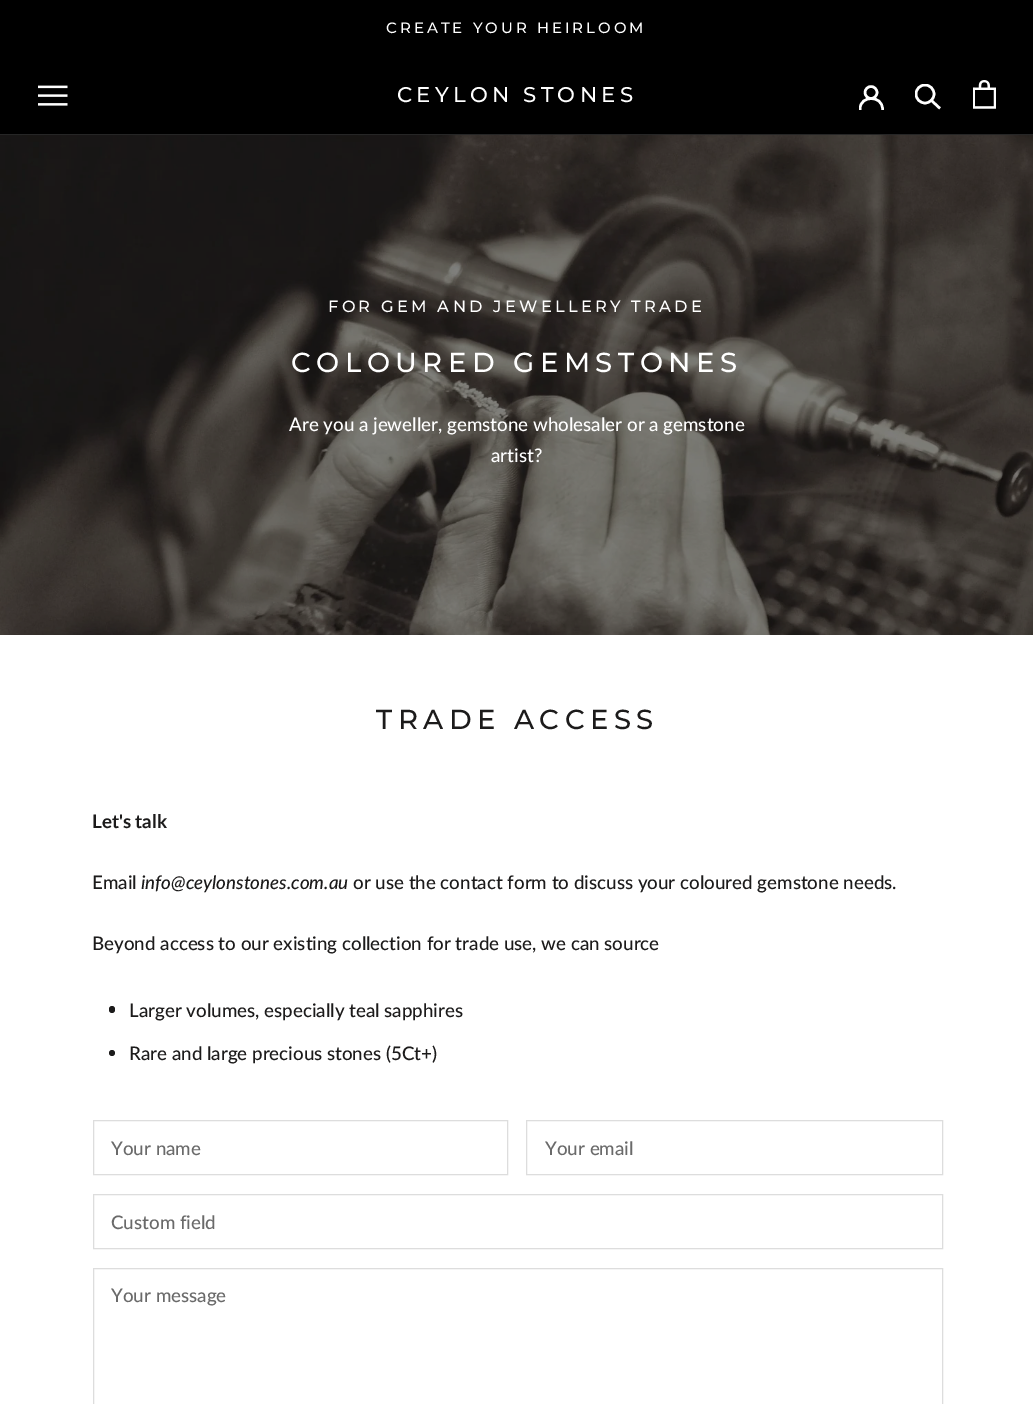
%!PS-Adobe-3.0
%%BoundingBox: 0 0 1033 1404
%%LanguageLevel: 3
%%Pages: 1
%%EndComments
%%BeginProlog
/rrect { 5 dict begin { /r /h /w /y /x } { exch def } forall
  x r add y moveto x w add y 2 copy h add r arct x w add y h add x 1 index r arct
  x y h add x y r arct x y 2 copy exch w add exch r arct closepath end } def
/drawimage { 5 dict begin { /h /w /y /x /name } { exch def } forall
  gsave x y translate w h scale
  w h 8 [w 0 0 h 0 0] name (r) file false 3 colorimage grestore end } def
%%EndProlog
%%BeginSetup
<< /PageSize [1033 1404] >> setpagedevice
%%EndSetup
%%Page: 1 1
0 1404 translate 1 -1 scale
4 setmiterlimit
1 setgray
0 0 1033 1404 rectfill
0 setgray
0 0 1033 134 rectfill
0.149 setgray
0 134 1033 1 rectfill
(images/1.raw) 38 85 30 21 drawimage
gsave
859 85 25 25 rectclip
1 setgray
2.5 setlinewidth
2 setlinecap
newpath 860 109 moveto 860 95 882.5 95 882.5 109 curveto stroke
grestore
1 setgray
2.5 setlinewidth
newpath 871 92.5 6 0 360 arc closepath stroke
2 setlinecap
newpath 939 107.5 moveto 931.5 100.5 lineto stroke
gsave
915 84 26 26 rectclip
0 setlinecap
newpath 925 94 9 0 360 arc closepath stroke
grestore
(images/2.raw) 973 80 23 29 drawimage
(images/3.raw) 0 135 1033 500 drawimage
0.11 0.106 0.106 setrgbcolor
109 1006 6 7 3 rrect fill
newpath 112 1053 3 0 360 arc closepath fill
0.867 setgray
1 setlinewidth
0 setlinecap
93.5 1120.5 414 54 rectstroke
526.5 1120.5 416 54 rectstroke
93.5 1194.5 849 54 rectstroke
93.5 1268.5 849 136 rectstroke
/Montserrat-Medium [15 0 0 -15 0 0] selectfont
1 setgray
386 33 moveto 3 0 (CREATE YOUR HEIRLOOM) ashow
/Montserrat-Medium [21.25 0 0 -21.25 0 0] selectfont
397 102 moveto 4.25 0 (CEYLON STONES) ashow
/Montserrat-Medium [16.25 0 0 -16.25 0 0] selectfont
328 312 moveto 3.25 0 (FOR GEM AND JEWELLERY TRADE) ashow
/Montserrat-Medium [27.5 0 0 -27.5 0 0] selectfont
291 372 moveto 5.5 0 (COLOURED GEMSTONES) ashow
/Lato-Medium [18.75 0 0 -18.75 0 0] selectfont
289 431 moveto (Are you a jeweller, gemstone wholesaler or a gemstone) show
491 462 moveto (artist?) show
/Montserrat-Medium [27.5 0 0 -27.5 0 0] selectfont
0.11 0.106 0.106 setrgbcolor
376 729 moveto 5.5 0 (TRADE ACCESS) ashow
/Lato-Bold [18.75 0 0 -18.75 0 0] selectfont
92 828 moveto (Let's talk) show
/Lato-Medium [18.75 0 0 -18.75 0 0] selectfont
92 889 moveto (Email) show
/Lato-MediumItalic [18.75 0 0 -18.75 0 0] selectfont
141 889 moveto (info@ceylonstones.com.au) show
/Lato-Medium [18.75 0 0 -18.75 0 0] selectfont
353 889 moveto (or use the contact form to discuss your coloured gemstone needs.) show
92 950 moveto (Beyond access to our existing collection for trade use, we can source) show
129 1017 moveto (Larger volumes, especially teal sapphires) show
129 1060 moveto (Rare and large precious stones \(5Ct+\)) show
0.416 setgray
111 1155 moveto (Your name) show
545 1155 moveto (Your email) show
111 1229 moveto (Custom field) show
111 1302 moveto (Your message) show
showpage
%%EOF
